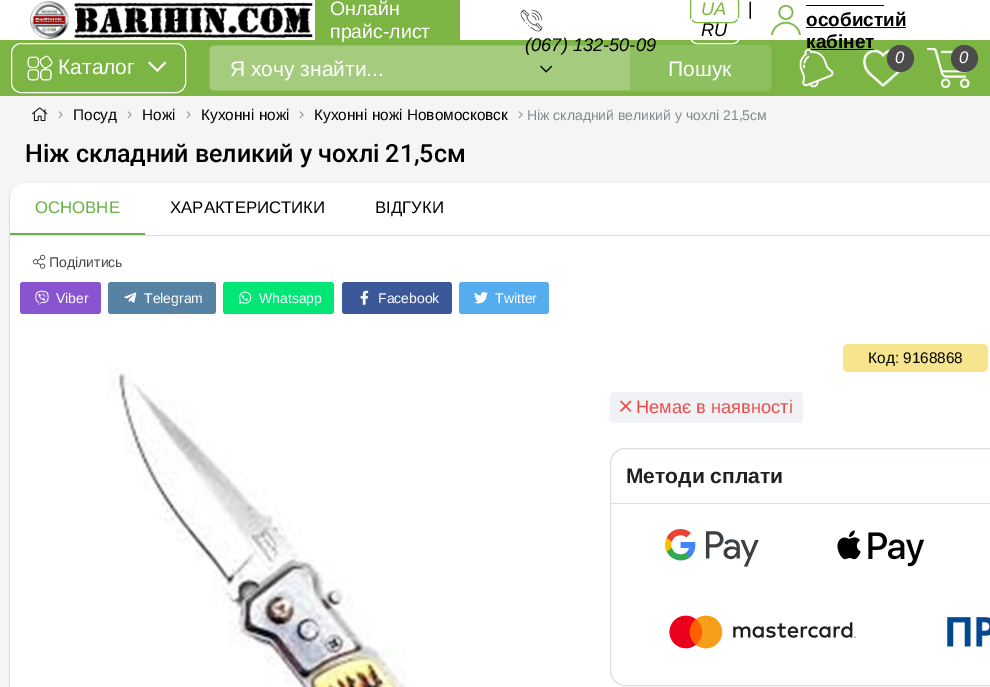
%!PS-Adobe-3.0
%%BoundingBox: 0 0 990 687
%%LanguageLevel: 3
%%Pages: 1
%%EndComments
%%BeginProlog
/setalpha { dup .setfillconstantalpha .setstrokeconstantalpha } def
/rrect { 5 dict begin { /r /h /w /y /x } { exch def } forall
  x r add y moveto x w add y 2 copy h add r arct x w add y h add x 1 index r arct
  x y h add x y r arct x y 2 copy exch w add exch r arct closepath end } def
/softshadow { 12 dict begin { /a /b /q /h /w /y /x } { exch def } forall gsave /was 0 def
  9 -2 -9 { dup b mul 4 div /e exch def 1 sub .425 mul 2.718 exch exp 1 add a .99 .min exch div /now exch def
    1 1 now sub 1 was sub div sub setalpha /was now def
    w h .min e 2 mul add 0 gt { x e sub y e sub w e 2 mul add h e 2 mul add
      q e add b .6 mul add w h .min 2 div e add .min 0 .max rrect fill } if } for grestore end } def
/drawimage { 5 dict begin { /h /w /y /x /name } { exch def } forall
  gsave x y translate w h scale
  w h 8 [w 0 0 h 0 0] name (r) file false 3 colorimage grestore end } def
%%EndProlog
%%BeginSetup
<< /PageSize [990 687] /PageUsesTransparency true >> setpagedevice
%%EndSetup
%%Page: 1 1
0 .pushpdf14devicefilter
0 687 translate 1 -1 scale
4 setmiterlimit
0.961 setgray
0 0 990 687 rectfill
1 setgray
0 0 990 40 rectfill
(images/1.raw) 30 1 284 38 drawimage
0.49 0.71 0.271 setrgbcolor
0 40 990 56 rectfill
315 -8 145 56 10 rrect fill
(images/2.raw) 520 9 23 23 drawimage
0.557 0.753 0.373 setrgbcolor
209.5 45.5 561 45 4.5 rrect stroke
0.647 0.796 0.494 setrgbcolor
newpath 214 46 moveto 630 46 lineto 630 90 lineto 214 90 lineto 212 90 210 88 210 86 curveto 210 50 lineto 210 48 212 46 214 46 curveto closepath fill
(images/3.raw) 540 65 13 8 drawimage
0.49 0.71 0.271 setrgbcolor
690.5 -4.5 48 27 6.5 rrect stroke
1 setgray
690.5 16.5 49 27 6.5 rrect stroke
(images/4.raw) 771 5 30 30 drawimage
0 setgray
806 5 78 1 rectfill
806 27 100 1 rectfill
806 49 68 1 rectfill
(images/6.raw) 863 49 38 38 drawimage
0.302 0.294 0.298 setrgbcolor
newpath 900.5 58.5 13.5 0 360 arc closepath fill
(images/7.raw) 927 48 43 40 drawimage
newpath 964.5 58.5 13.5 0 360 arc closepath fill
1 setgray
11.5 43.5 174 49 9.5 rrect stroke
(images/8.raw) 27 55 26 26 drawimage
(images/9.raw) 148 61 19 11 drawimage
0.557 0.753 0.373 setrgbcolor
newpath 630 46 moveto 766 46 lineto 768 46 770 48 770 50 curveto 770 86 lineto 770 88 768 90 766 90 curveto 630 90 lineto closepath fill
(images/10.raw) 32 107 16 14 drawimage
(images/11.raw) 58 111 5 8 drawimage
(images/11.raw) 127 111 5 8 drawimage
(images/11.raw) 186 111 5 8 drawimage
(images/11.raw) 299 111 5 8 drawimage
(images/11.raw) 518 111 5 8 drawimage
0 setgray
10 184 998 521 15 1 0.25 softshadow
1 setgray
10 183 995 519 15 rrect fill
0.855 0.875 0.882 setrgbcolor
10 235 980 1 rectfill
0.416 0.69 0.298 setrgbcolor
10 233 135 2 rectfill
(images/12.raw) 33 254 13 15 drawimage
0.533 0.329 0.816 setrgbcolor
20 282 81 32 3 rrect fill
(images/13.raw) 35 290 14 15 drawimage
0.337 0.51 0.639 setrgbcolor
108 282 108 32 3 rrect fill
(images/14.raw) 124 292 13 11 drawimage
0.004 0.902 0.459 setrgbcolor
223 282 111 32 3 rrect fill
(images/15.raw) 239 291 13 13 drawimage
0.231 0.349 0.6 setrgbcolor
342 282 110 32 3 rrect fill
(images/16.raw) 360 290 9 15 drawimage
0.333 0.675 0.933 setrgbcolor
459 282 90 32 3 rrect fill
(images/17.raw) 474 292 14 12 drawimage
(images/18.raw) 107 367 303 320 drawimage
0.965 0.898 0.553 setrgbcolor
843 344 145 28 5 rrect fill
0.945 0.949 0.965 setrgbcolor
610 392 193 31 4 rrect fill
(images/19.raw) 620 400 12 12 drawimage
0.855 0.875 0.882 setrgbcolor
610.5 448.5 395 237 14.5 rrect stroke
611 503 379 1 rectfill
(images/20.raw) 665 529 94 38 drawimage
(images/21.raw) 837 530 88 37 drawimage
(images/22.raw) 669 615 187 34 drawimage
(images/23.raw) 947 617 43 30 drawimage
/LiberationSans-Regular [19.5 0 0 -19.5 0 0] selectfont
1 setgray
330 15 moveto (Онлайн) show
330 38 moveto (прайс-лист) show
/LiberationSans-Italic [18.25 0 0 -18.25 0 0] selectfont
0 setgray
525 51 moveto (\(067\) 132-50-09) show
0.49 0.71 0.271 setrgbcolor
701 15 moveto (UA) show
/LiberationSans-Regular [18.25 0 0 -18.25 0 0] selectfont
0 setgray
748 15 moveto (|) show
/LiberationSans-Italic [18.25 0 0 -18.25 0 0] selectfont
701 36 moveto (RU) show
/LiberationSans-Bold [19 0 0 -19 0 0] selectfont
806 26 moveto (особистий) show
806 48 moveto (кабінет) show
(images/5.raw) 799 48 35 40 drawimage
/LiberationSans-Italic [16.75 0 0 -16.75 0 0] selectfont
1 setgray
895 63 moveto (0) show
959 63 moveto (0) show
/LiberationSans-Regular [21 0 0 -21 0 0] selectfont
58 74 moveto (Каталог) show
230 76 moveto (Я хочу знайти...) show
668 76 moveto (Пошук) show
/LiberationSans-Regular [15.4 0 0 -15.4 0 0] selectfont
0 setgray
73 120 moveto (Посуд) show
142 120 moveto (Ножі) show
201 120 moveto (Кухонні ножі) show
314 120 moveto (Кухонні ножі Новомосковск) show
/LiberationSans-Regular [14 0 0 -14 0 0] selectfont
0.498 0.549 0.553 setrgbcolor
527 120 moveto (Ніж складний великий у чохлi 21,5см) show
/Roboto-Medium [25 0 0 -25 0 0] selectfont
0 setgray
25 162 moveto (Ніж складний великий у чохлi 21,5см) show
/LiberationSans-Regular [16.75 0 0 -16.75 0 0] selectfont
0.416 0.69 0.298 setrgbcolor
35 213 moveto (ОСНОВНЕ) show
0 setgray
170 213 moveto (ХАРАКТЕРИСТИКИ) show
375 213 moveto (ВІДГУКИ) show
/LiberationSans-Regular [14 0 0 -14 0 0] selectfont
0.271 setgray
49 267 moveto (Поділитись) show
1 setgray
56 303 moveto (Viber) show
144 303 moveto (Telegram) show
259 303 moveto (Whatsapp) show
378 303 moveto (Facebook) show
495 303 moveto (Twitter) show
/LiberationSans-Regular [15.4 0 0 -15.4 0 0] selectfont
0 setgray
868 363 moveto (Код: 9168868) show
/LiberationSans-Regular [18.25 0 0 -18.25 0 0] selectfont
0.922 0.302 0.294 setrgbcolor
636 413 moveto (Немає в наявності) show
/LiberationSans-Bold [21 0 0 -21 0 0] selectfont
0.133 0.122 0.122 setrgbcolor
626 483 moveto (Методи сплати) show
.poppdf14devicefilter showpage
%%EOF
